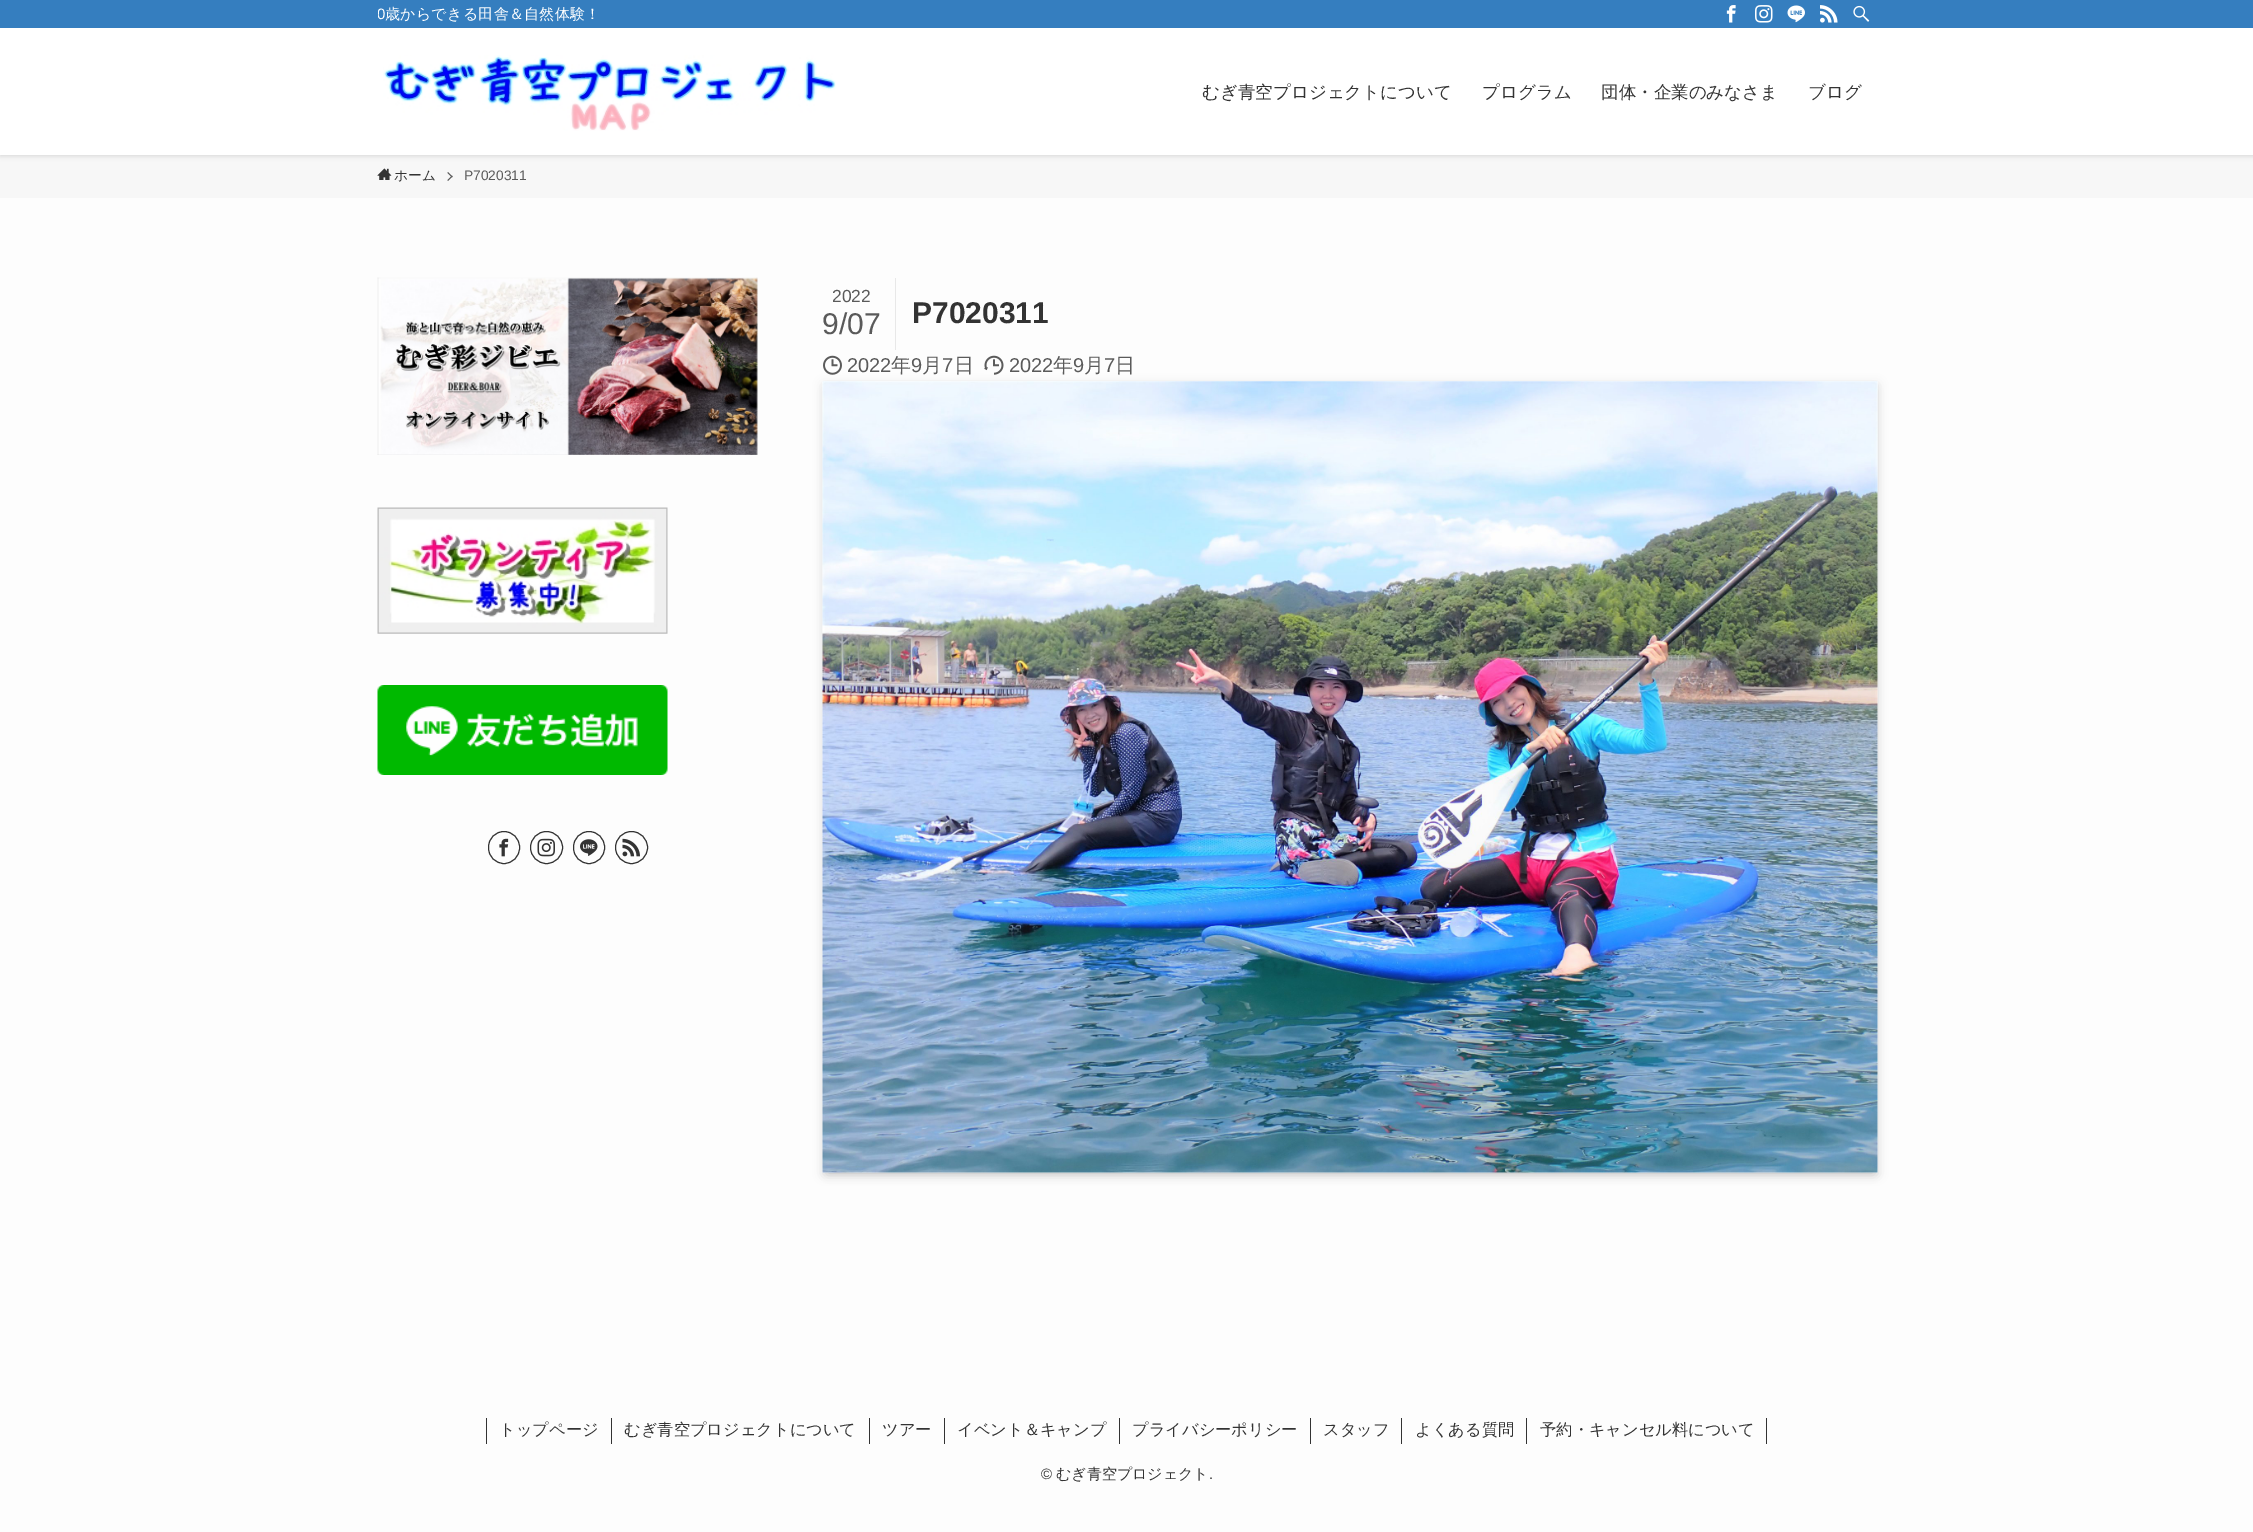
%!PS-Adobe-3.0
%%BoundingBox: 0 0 2253 1532
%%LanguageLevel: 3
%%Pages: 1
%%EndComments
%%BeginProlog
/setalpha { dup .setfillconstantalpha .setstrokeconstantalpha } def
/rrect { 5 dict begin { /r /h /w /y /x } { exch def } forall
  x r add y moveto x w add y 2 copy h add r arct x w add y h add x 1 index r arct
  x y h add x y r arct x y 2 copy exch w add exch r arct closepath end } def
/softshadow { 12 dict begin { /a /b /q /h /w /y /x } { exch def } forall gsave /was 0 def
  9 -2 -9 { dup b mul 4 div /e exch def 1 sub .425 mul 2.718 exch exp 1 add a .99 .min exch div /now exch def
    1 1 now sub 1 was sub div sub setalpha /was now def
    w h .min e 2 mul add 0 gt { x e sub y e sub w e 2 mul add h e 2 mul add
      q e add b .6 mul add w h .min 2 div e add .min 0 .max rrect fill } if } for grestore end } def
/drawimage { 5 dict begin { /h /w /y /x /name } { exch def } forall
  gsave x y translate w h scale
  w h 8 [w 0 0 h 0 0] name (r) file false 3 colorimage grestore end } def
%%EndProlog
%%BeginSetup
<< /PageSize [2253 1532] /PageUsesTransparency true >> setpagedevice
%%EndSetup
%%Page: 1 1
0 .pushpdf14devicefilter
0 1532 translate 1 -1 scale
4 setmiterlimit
0.992 setgray
0 0 2253 1532 rectfill
0.969 setgray
0 155 2253 43 rectfill
0 setgray
0 1 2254 155 0 2.5 0.12 softshadow
1 setgray
0 28 2253 127 rectfill
0.208 0.494 0.749 setrgbcolor
0 0 2253 28 rectfill
(images/1.raw) 1726 5 10 18 drawimage
(images/2.raw) 1755 5 18 18 drawimage
(images/3.raw) 1787 5 18 18 drawimage
(images/4.raw) 1820 5 18 18 drawimage
(images/5.raw) 1853 5 17 17 drawimage
(images/6.raw) 383 55 453 76 drawimage
(images/7.raw) 377 168 15 12 drawimage
0.353 setgray
newpath 448 172 moveto 452.5 176.5 lineto 452 177.5 lineto 447.5 173 lineto closepath fill
newpath 452 175.5 moveto 452.5 176.5 lineto 448 181 lineto 447.5 180 lineto closepath fill
(images/8.raw) 377 277 381 178 drawimage
(images/9.raw) 377 507 291 127 drawimage
(images/10.raw) 377 685 291 90 drawimage
0.2 setgray
488.5 831.5 31 32 15.5 rrect stroke
(images/11.raw) 499 838 10 19 drawimage
newpath 546.5 847.5 16 0 360 arc closepath stroke
(images/12.raw) 537 838 18 19 drawimage
573.5 831.5 31 32 15.5 rrect stroke
(images/13.raw) 580 839 18 17 drawimage
newpath 631.5 847.5 16 0 360 arc closepath stroke
(images/14.raw) 622 838 18 19 drawimage
0.91 setgray
895 278 1 72 rectfill
0 setgray
823 384 1055 791 0 5 0.1 softshadow
(images/15.raw) 823 355 19 20 drawimage
(images/16.raw) 984 355 20 20 drawimage
828 391 1045 782 0 5 0.2 softshadow
(images/17.raw) 822 381 1056 792 drawimage
0.2 setgray
611 1418 1 26 rectfill
486 1418 1 26 rectfill
869 1418 1 26 rectfill
944 1418 1 26 rectfill
1119 1418 1 26 rectfill
1310 1418 1 26 rectfill
1401 1418 1 26 rectfill
1526 1418 1 26 rectfill
1766 1418 1 26 rectfill
gsave
378 0 750 28 rectclip
/LiberationSans-Regular [15 0 0 -15 0 0] selectfont
1 setgray
377 19 moveto 0.25 0 (0) ashow
grestore
/WenQuanYiZenHei-Medium [15 0 0 -15 0 0] selectfont
1 setgray
385 19 moveto 0.25 0 (歳からできる田舎＆自然体験！) ashow
/WenQuanYiZenHei-Medium [17.5 0 0 -17.5 0 0] selectfont
0.2 setgray
1202 98 moveto (むぎ青空プロジェクトについて) show
1482 98 moveto (プログラム) show
1601 98 moveto (団体・企業のみなさま) show
1808 98 moveto (ブログ) show
/WenQuanYiZenHei-Medium [13.75 0 0 -13.75 0 0] selectfont
394 180 moveto (ホーム) show
/LiberationSans-Regular [13.75 0 0 -13.75 0 0] selectfont
0.353 setgray
464 180 moveto (P7020311) show
/LiberationSans-Regular [17.5 0 0 -17.5 0 0] selectfont
832 302 moveto (2022) show
/LiberationSans-Regular [30 0 0 -30 0 0] selectfont
822 334 moveto (9/07) show
/LiberationSans-Bold [30 0 0 -30 0 0] selectfont
0.2 setgray
912 323 moveto (P7020311) show
/LiberationSans-Regular [20 0 0 -20 0 0] selectfont
0.353 setgray
847 372 moveto (2022) show
/WenQuanYiZenHei-Medium [20 0 0 -20 0 0] selectfont
891 372 moveto (年) show
/LiberationSans-Regular [20 0 0 -20 0 0] selectfont
911 372 moveto (9) show
/WenQuanYiZenHei-Medium [20 0 0 -20 0 0] selectfont
922 372 moveto (月) show
/LiberationSans-Regular [20 0 0 -20 0 0] selectfont
942 372 moveto (7) show
/WenQuanYiZenHei-Medium [20 0 0 -20 0 0] selectfont
954 372 moveto (日) show
/LiberationSans-Regular [20 0 0 -20 0 0] selectfont
1009 372 moveto (2022) show
/WenQuanYiZenHei-Medium [20 0 0 -20 0 0] selectfont
1053 372 moveto (年) show
/LiberationSans-Regular [20 0 0 -20 0 0] selectfont
1073 372 moveto (9) show
/WenQuanYiZenHei-Medium [20 0 0 -20 0 0] selectfont
1084 372 moveto (月) show
/LiberationSans-Regular [20 0 0 -20 0 0] selectfont
1104 372 moveto (7) show
/WenQuanYiZenHei-Medium [20 0 0 -20 0 0] selectfont
1115 372 moveto (日) show
/WenQuanYiZenHei-Medium [16.25 0 0 -16.25 0 0] selectfont
0.2 setgray
499 1435 moveto (トップページ) show
624 1435 moveto (むぎ青空プロジェクトについて) show
882 1435 moveto (ツアー) show
957 1435 moveto (イベント＆キャンプ) show
1132 1435 moveto (プライバシーポリシー) show
1323 1435 moveto (スタッフ) show
1415 1435 moveto (よくある質問) show
1540 1435 moveto (予約・キャンセル料について) show
/LiberationSans-Regular [15 0 0 -15 0 0] selectfont
1041 1479 moveto (©) show
/WenQuanYiZenHei-Medium [15 0 0 -15 0 0] selectfont
1056 1479 moveto (むぎ青空プロジェクト) show
/LiberationSans-Regular [15 0 0 -15 0 0] selectfont
1209 1479 moveto (.) show
.poppdf14devicefilter showpage
%%EOF
